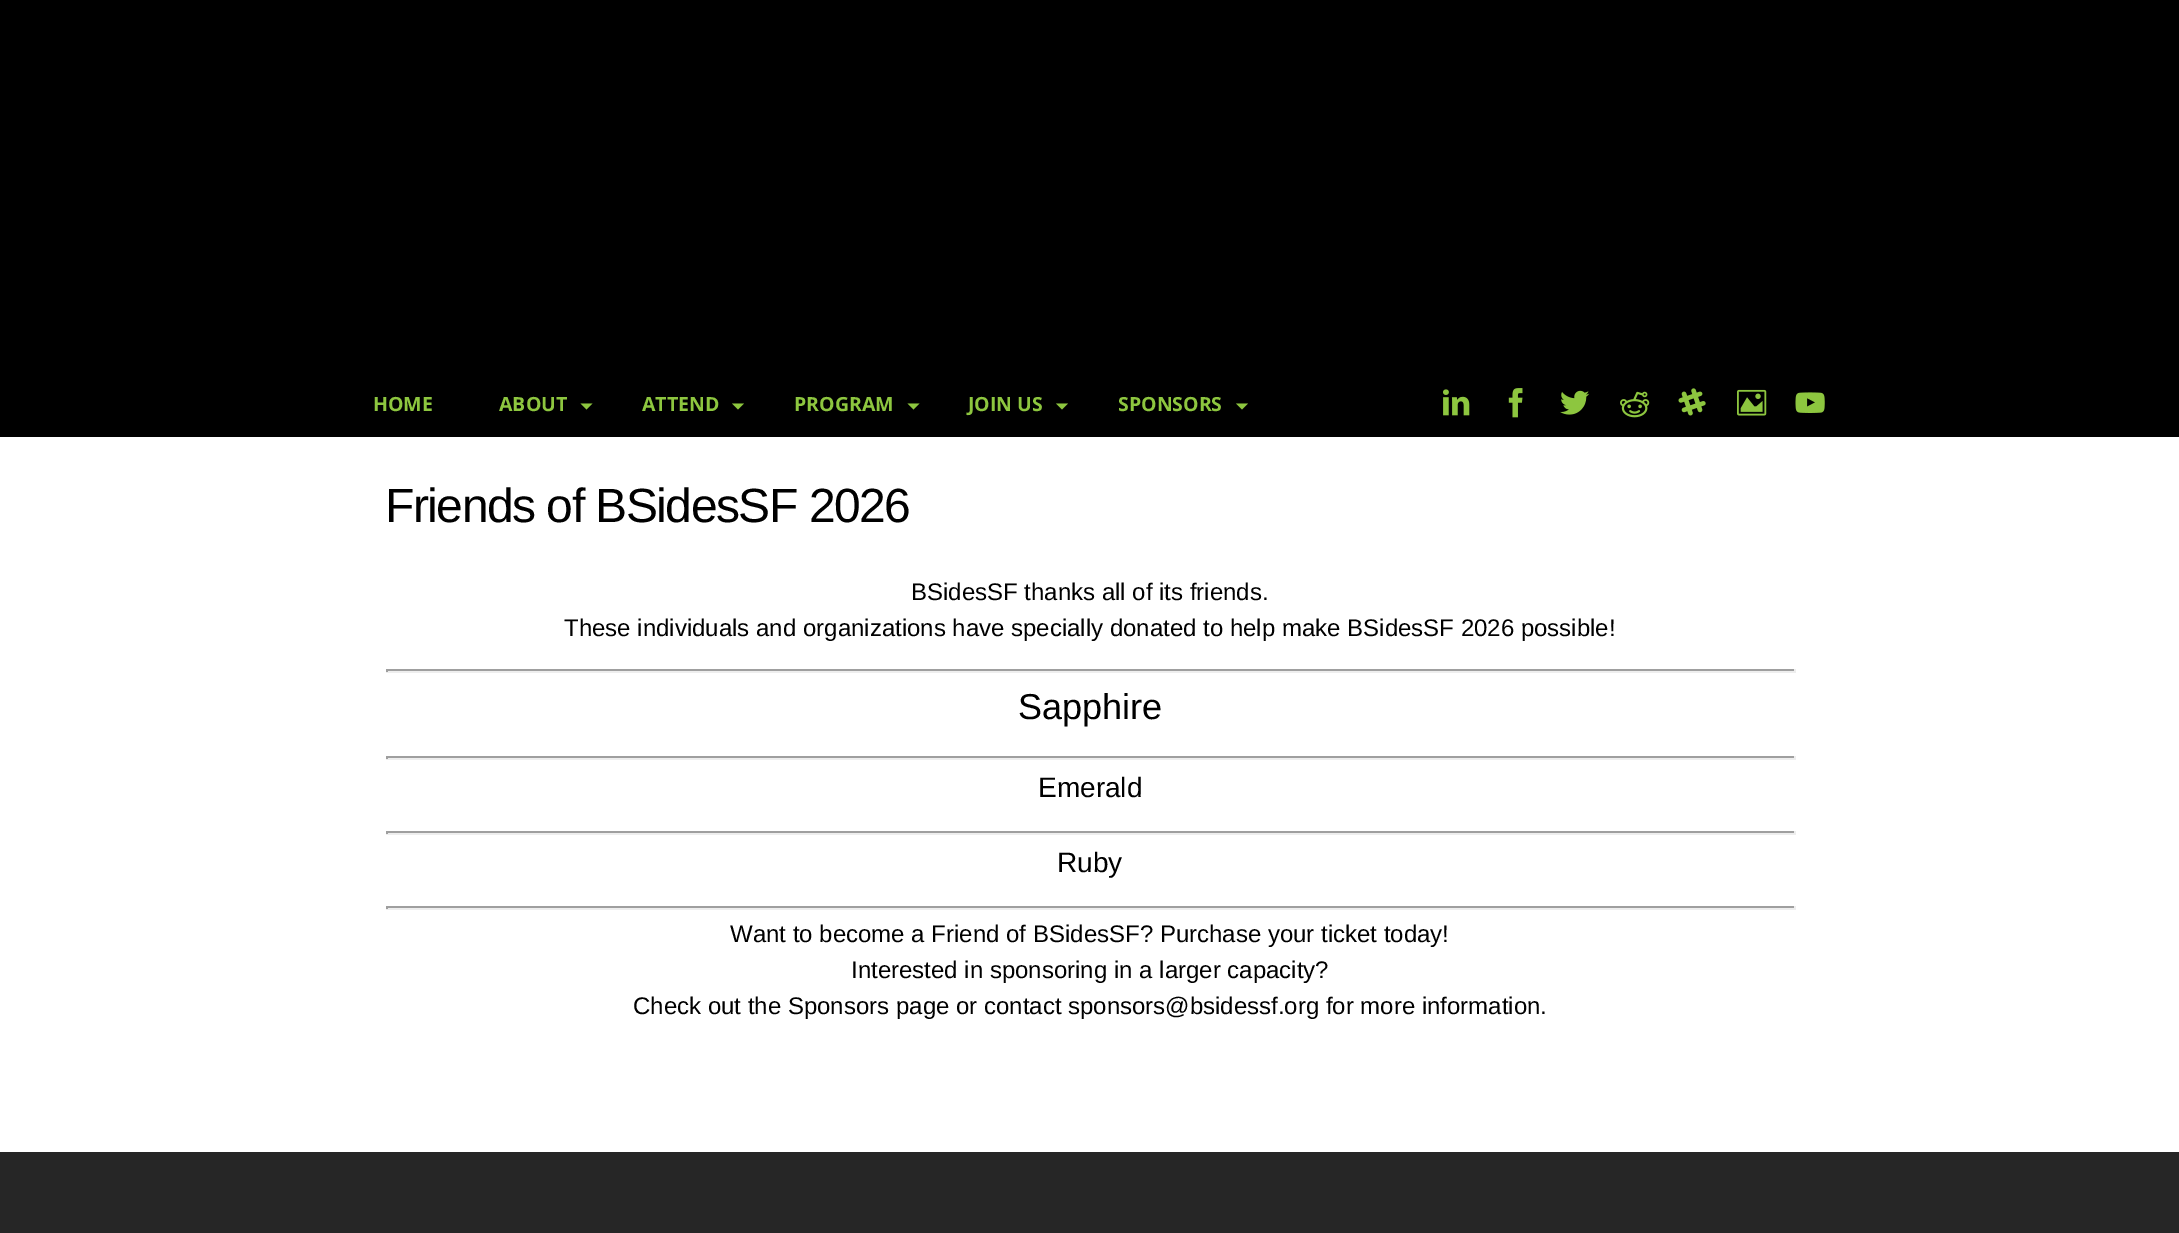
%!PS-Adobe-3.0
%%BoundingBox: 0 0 2179 1233
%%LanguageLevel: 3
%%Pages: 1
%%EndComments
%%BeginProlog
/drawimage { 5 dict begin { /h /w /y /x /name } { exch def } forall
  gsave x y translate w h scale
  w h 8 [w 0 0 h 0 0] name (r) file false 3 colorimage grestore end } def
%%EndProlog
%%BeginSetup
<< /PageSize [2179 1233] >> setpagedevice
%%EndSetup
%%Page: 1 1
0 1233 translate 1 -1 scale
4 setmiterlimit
1 setgray
0 0 2179 1233 rectfill
0 setgray
0 0 2179 437 rectfill
0.553 0.776 0.247 setrgbcolor
newpath 580.5 403.5 moveto 592.5 403.5 lineto 586.5 409.5 lineto closepath fill
newpath 732 403.5 moveto 744 403.5 lineto 738 409.5 lineto closepath fill
newpath 907.5 403.5 moveto 919.5 403.5 lineto 913.5 409.5 lineto closepath fill
newpath 1056 403.5 moveto 1068 403.5 lineto 1062 409.5 lineto closepath fill
newpath 1236 403.5 moveto 1248 403.5 lineto 1242 409.5 lineto closepath fill
(images/1.raw) 1443 389 27 27 drawimage
(images/2.raw) 1508 388 15 30 drawimage
(images/3.raw) 1560 390 30 25 drawimage
(images/4.raw) 1620 391 30 27 drawimage
(images/5.raw) 1678 388 28 28 drawimage
(images/6.raw) 1737 389 30 27 drawimage
(images/7.raw) 1795 392 30 21 drawimage
0.624 setgray
386 669 1410 2 rectfill
0.933 setgray
1794 669 2 3 rectfill
386 671 1410 2 rectfill
0.624 setgray
386 669 2 3 rectfill
386 756 1410 2 rectfill
0.933 setgray
1794 756 2 3 rectfill
386 758 1410 2 rectfill
0.624 setgray
386 756 2 3 rectfill
386 831 1410 2 rectfill
0.933 setgray
1794 831 2 3 rectfill
386 833 1410 2 rectfill
0.624 setgray
386 831 2 3 rectfill
386 906 1410 2 rectfill
0.933 setgray
1794 906 2 3 rectfill
386 908 1410 2 rectfill
0.624 setgray
386 906 2 3 rectfill
0.149 setgray
0 1152 2179 81 rectfill
/OpenSans-Bold [19.5 0 0 -19.5 0 0] selectfont
0.553 0.776 0.247 setrgbcolor
373 411 moveto (HOME) show
499 411 moveto (ABOUT) show
642 411 moveto (ATTEND) show
794 411 moveto (PROGRAM) show
968 411 moveto (JOIN US) show
1118 411 moveto (SPONSORS) show
/LiberationSans-Regular [48 0 0 -48 0 0] selectfont
0 setgray
385 522 moveto -1.5 0 (Friends of BSidesSF 2026) ashow
/LiberationSans-Regular [24 0 0 -24 0 0] selectfont
911 600 moveto (BSidesSF thanks all of its friends.) show
564 636 moveto (These individuals and organizations have specially donated to help make BSidesSF 2026 possible!) show
/LiberationSans-Regular [36 0 0 -36 0 0] selectfont
1018 719 moveto (Sapphire) show
/LiberationSans-Regular [28 0 0 -28 0 0] selectfont
1038 797 moveto (Emerald) show
1057 872 moveto (Ruby) show
/LiberationSans-Regular [24 0 0 -24 0 0] selectfont
730 942 moveto (Want to become a Friend of BSidesSF? Purchase your ticket today!) show
851 978 moveto (Interested in sponsoring in a larger capacity?) show
633 1014 moveto (Check out the Sponsors page or contact sponsors@bsidessf.org for more information.) show
showpage
%%EOF
